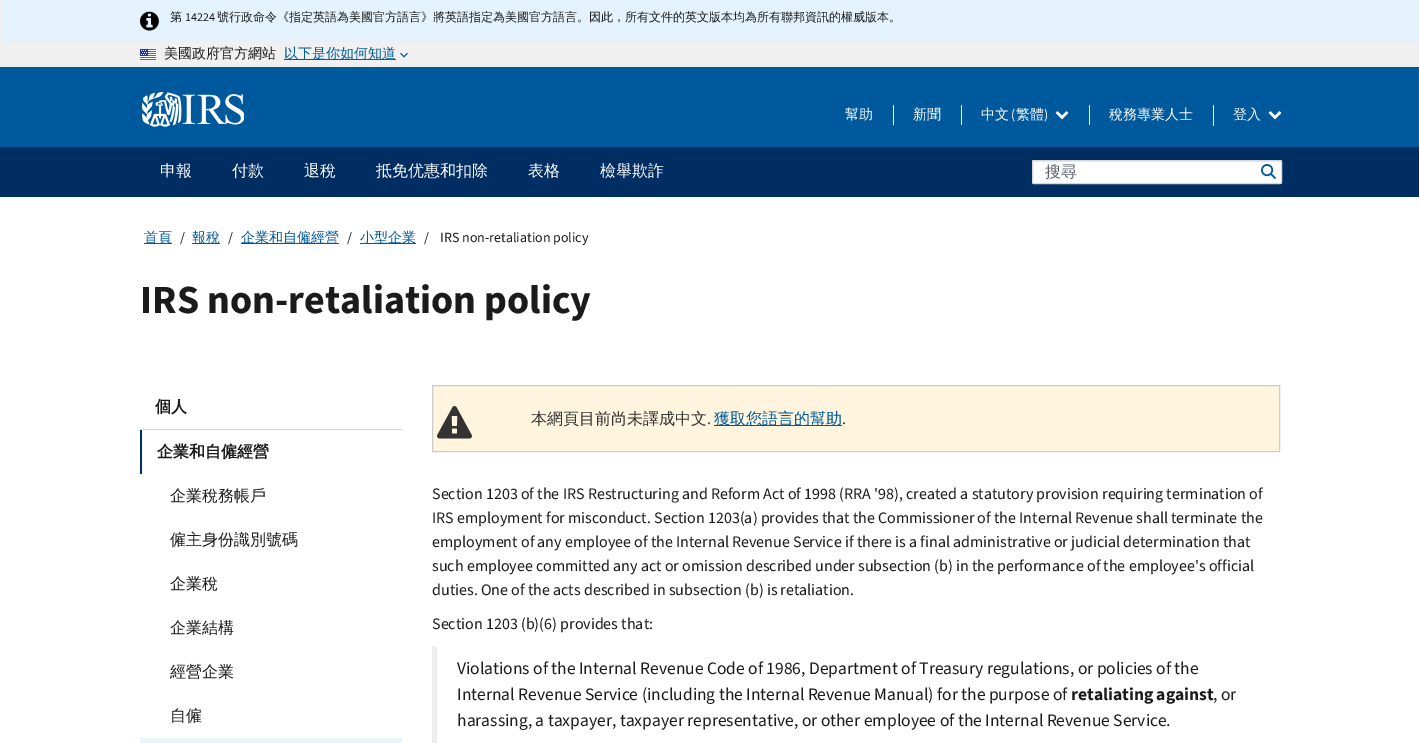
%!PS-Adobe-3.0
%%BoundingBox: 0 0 1419 743
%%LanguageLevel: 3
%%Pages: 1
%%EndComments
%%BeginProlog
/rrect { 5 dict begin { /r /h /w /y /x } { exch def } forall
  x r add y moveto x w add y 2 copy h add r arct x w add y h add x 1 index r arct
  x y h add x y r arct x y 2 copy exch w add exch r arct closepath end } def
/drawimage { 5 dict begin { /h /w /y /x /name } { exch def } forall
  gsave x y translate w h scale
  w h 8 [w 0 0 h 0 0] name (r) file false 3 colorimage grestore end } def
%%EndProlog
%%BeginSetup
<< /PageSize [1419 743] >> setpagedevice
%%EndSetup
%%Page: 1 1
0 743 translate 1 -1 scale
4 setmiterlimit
1 setgray
0 0 1419 743 rectfill
0.941 setgray
0 0 1419 67 rectfill
0.894 0.953 0.984 setrgbcolor
1 0 1418 42 rectfill
(images/1.raw) 140 11 19 20 drawimage
(images/2.raw) 140 49 16 11 drawimage
0 0.369 0.635 setrgbcolor
284 59 112 1 rectfill
(images/3.raw) 400 52 8 6 drawimage
0 0.349 0.612 setrgbcolor
0 67 1419 80 rectfill
(images/4.raw) 142 92 102 35 drawimage
1 setgray
893 105 1 20 rectfill
961 105 1 20 rectfill
(images/5.raw) 1055 111 14 9 drawimage
1089 105 1 20 rectfill
1213 105 1 21 rectfill
(images/5.raw) 1268 111 14 9 drawimage
0 0.176 0.384 setrgbcolor
0 147 1419 50 rectfill
1 setgray
1032 160 250 24 2 rrect fill
0.925 setgray
newpath 1034 162 moveto 1280 162 lineto 1281 162 1281 162 1281 163 curveto 1281 161 lineto 1034 161 lineto 1033 161 1033 162 1033 163 curveto 1033 162 1033 162 1034 162 curveto closepath fill
0.839 0.843 0.851 setrgbcolor
1032.5 160.5 249 23 1.5 rrect stroke
(images/6.raw) 1261 164 15 15 drawimage
0 0.349 0.612 setrgbcolor
144 243 28 1 rectfill
192 243 28 1 rectfill
241 243 98 1 rectfill
360 243 56 1 rectfill
0.839 0.843 0.851 setrgbcolor
140 429 262 1 rectfill
0 0.176 0.384 setrgbcolor
140 430 2 44 rectfill
0.906 0.965 0.973 setrgbcolor
140 738 262 5 rectfill
1 0.957 0.867 setrgbcolor
newpath 432.5 385.5 moveto 1279.5 385.5 lineto 1279.5 451.5 lineto 432.5 451.5 lineto closepath gsave fill grestore
0.8 setgray
stroke
(images/7.raw) 437 406 35 33 drawimage
0 0.349 0.612 setrgbcolor
714 425 128 1 rectfill
0.933 setgray
432 646 5 97 rectfill
/WenQuanYiZenHei-Medium [12 0 0 -12 0 0] selectfont
0.106 setgray
170 21 moveto (第) show
/SourceSans3-Regular [12 0 0 -12 0 0] selectfont
185 21 moveto (14224) show
/WenQuanYiZenHei-Medium [12 0 0 -12 0 0] selectfont
217 21 moveto (號行政命令《指定英語為美國官方語言》將英語指定為美國官方語言。因此，所有文件的英文版本均為所有聯邦資訊的權威版本。) show
/WenQuanYiZenHei-Medium [14 0 0 -14 0 0] selectfont
164 58 moveto (美國政府官方網站) show
0 0.369 0.635 setrgbcolor
284 58 moveto (以下是你如何知道) show
1 setgray
845 119 moveto (幫助) show
913 119 moveto (新聞) show
981 119 moveto (中文) show
/SourceSans3-Regular [14 0 0 -14 0 0] selectfont
1011 119 moveto (\() show
/WenQuanYiZenHei-Medium [14 0 0 -14 0 0] selectfont
1016 119 moveto (繁體) show
/SourceSans3-Regular [14 0 0 -14 0 0] selectfont
1044 119 moveto (\)) show
/WenQuanYiZenHei-Medium [14 0 0 -14 0 0] selectfont
1109 119 moveto (稅務專業人士) show
1233 119 moveto (登入) show
/WenQuanYiZenHei-Medium [16 0 0 -16 0 0] selectfont
160 176 moveto (申報) show
232 176 moveto (付款) show
304 176 moveto (退稅) show
376 176 moveto (抵免优惠和扣除) show
528 176 moveto (表格) show
600 176 moveto (檢舉欺詐) show
0.357 0.38 0.42 setrgbcolor
1045 177 moveto (搜尋) show
/WenQuanYiZenHei-Medium [14 0 0 -14 0 0] selectfont
0 0.349 0.612 setrgbcolor
144 242 moveto (首頁) show
/SourceSans3-Regular [14 0 0 -14 0 0] selectfont
0.106 setgray
180 242 moveto (/) show
/WenQuanYiZenHei-Medium [14 0 0 -14 0 0] selectfont
0 0.349 0.612 setrgbcolor
192 242 moveto (報稅) show
/SourceSans3-Regular [14 0 0 -14 0 0] selectfont
0.106 setgray
228 242 moveto (/) show
/WenQuanYiZenHei-Medium [14 0 0 -14 0 0] selectfont
0 0.349 0.612 setrgbcolor
241 242 moveto (企業和自僱經營) show
/SourceSans3-Regular [14 0 0 -14 0 0] selectfont
0.106 setgray
347 242 moveto (/) show
/WenQuanYiZenHei-Medium [14 0 0 -14 0 0] selectfont
0 0.349 0.612 setrgbcolor
360 242 moveto (小型企業) show
/SourceSans3-Regular [14 0 0 -14 0 0] selectfont
0.106 setgray
424 242 moveto (/) show
440 242 moveto (IRS non-retaliation policy) show
/SourceSans3-Bold [40 0 0 -40 0 0] selectfont
140 313 moveto (IRS non-retaliation policy) show
/WenQuanYiZenHei-Bold [16 0 0 -16 0 0] selectfont
155 412 moveto (個人) show
157 457 moveto (企業和自僱經營) show
/WenQuanYiZenHei-Medium [16 0 0 -16 0 0] selectfont
170 501 moveto (企業稅務帳戶) show
170 545 moveto (僱主身份識別號碼) show
170 589 moveto (企業稅) show
170 633 moveto (企業結構) show
170 677 moveto (經營企業) show
170 721 moveto (自僱) show
0.2 setgray
531 424 moveto (本網頁目前尚未譯成中文) show
/SourceSans3-Regular [16 0 0 -16 0 0] selectfont
707 424 moveto (.) show
/WenQuanYiZenHei-Medium [16 0 0 -16 0 0] selectfont
0 0.349 0.612 setrgbcolor
714 424 moveto (獲取您語言的幫助) show
/SourceSans3-Regular [16 0 0 -16 0 0] selectfont
0.2 setgray
842 424 moveto (.) show
0.106 setgray
432 499 moveto (Section 1203 of the IRS Restructuring and Reform Act of 1998 \(RRA '98\), created a statutory provision requiring termination of) show
432 523 moveto (IRS employment for misconduct. Section 1203\(a\) provides that the Commissioner of the Internal Revenue shall terminate the) show
432 547 moveto (employment of any employee of the Internal Revenue Service if there is a final administrative or judicial determination that) show
432 571 moveto (such employee committed any act or omission described under subsection \(b\) in the performance of the employee's official) show
432 595 moveto (duties. One of the acts described in subsection \(b\) is retaliation.) show
432 629 moveto (Section 1203 \(b\)\(6\) provides that:) show
/SourceSans3-Regular [17.5 0 0 -17.5 0 0] selectfont
457 674 moveto (Violations of the Internal Revenue Code of 1986, Department of Treasury regulations, or policies of the) show
457 700 moveto (Internal Revenue Service \(including the Internal Revenue Manual\) for the purpose of) show
/SourceSans3-Bold [17.5 0 0 -17.5 0 0] selectfont
1071 700 moveto (retaliating against) show
/SourceSans3-Regular [17.5 0 0 -17.5 0 0] selectfont
1213 700 moveto (, or) show
457 726 moveto (harassing, a taxpayer, taxpayer representative, or other employee of the Internal Revenue Service.) show
showpage
%%EOF
